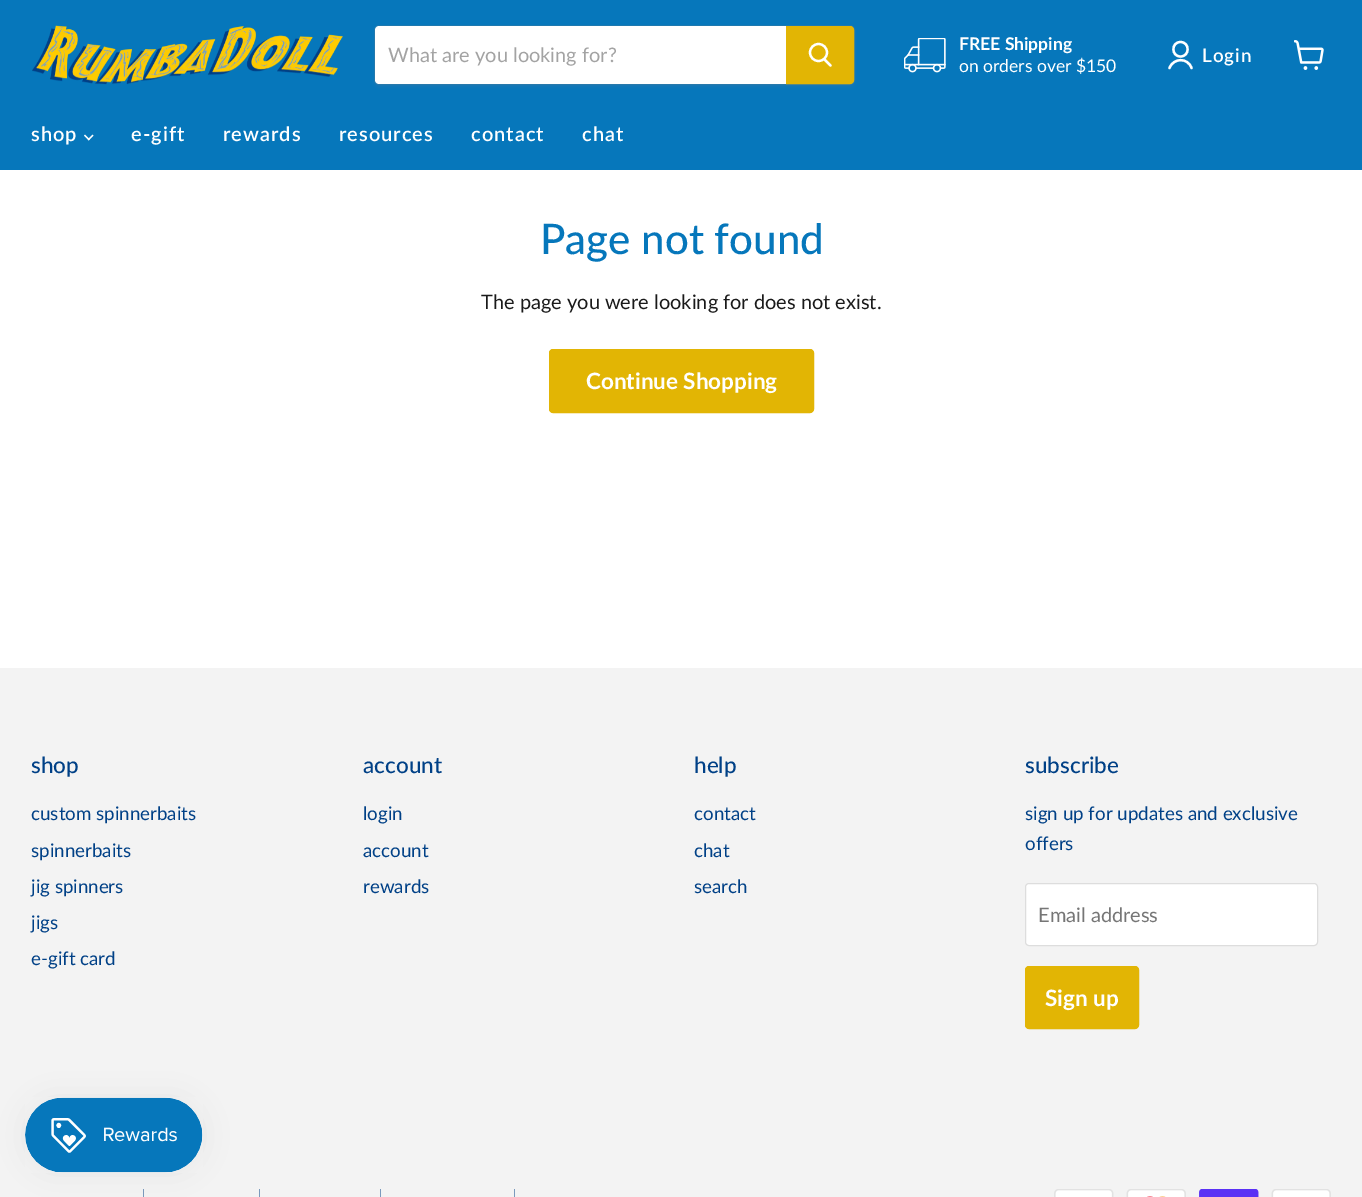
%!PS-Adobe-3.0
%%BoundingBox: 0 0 1362 1197
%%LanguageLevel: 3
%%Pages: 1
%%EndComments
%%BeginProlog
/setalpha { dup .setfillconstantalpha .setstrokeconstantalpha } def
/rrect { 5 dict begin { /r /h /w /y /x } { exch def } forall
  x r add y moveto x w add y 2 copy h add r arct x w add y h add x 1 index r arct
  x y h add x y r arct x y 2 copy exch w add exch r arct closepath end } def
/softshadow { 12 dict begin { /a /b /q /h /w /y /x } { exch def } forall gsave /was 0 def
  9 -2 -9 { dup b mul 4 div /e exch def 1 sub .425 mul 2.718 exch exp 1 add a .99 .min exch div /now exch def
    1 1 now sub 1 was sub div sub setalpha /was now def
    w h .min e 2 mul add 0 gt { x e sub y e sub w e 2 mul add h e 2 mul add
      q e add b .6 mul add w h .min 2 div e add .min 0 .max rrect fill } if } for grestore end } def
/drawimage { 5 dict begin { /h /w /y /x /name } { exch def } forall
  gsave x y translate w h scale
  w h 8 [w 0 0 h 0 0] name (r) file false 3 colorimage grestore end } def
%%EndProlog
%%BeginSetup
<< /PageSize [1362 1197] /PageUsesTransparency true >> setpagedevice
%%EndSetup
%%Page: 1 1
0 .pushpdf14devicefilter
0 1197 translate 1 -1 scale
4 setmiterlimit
1 setgray
0 0 1362 1197 rectfill
0.024 0.467 0.733 setrgbcolor
0 0 1362 170 rectfill
(images/1.raw) 32 25 311 60 drawimage
0.502 setgray
374 28 481 60 5 2 0.11 softshadow
0.2 setalpha
374.5 25.5 480 59 4.5 rrect stroke
1 setalpha
1 setgray
newpath 379 26 moveto 786 26 lineto 786 84 lineto 379 84 lineto 377 84 375 82 375 80 curveto 375 30 lineto 375 28 377 26 379 26 curveto closepath fill
0.886 0.71 0.016 setrgbcolor
newpath 786.5 26.5 moveto 850 26.5 lineto 852 26.5 853.5 28 853.5 30 curveto 853.5 80 lineto 853.5 82 852 83.5 850 83.5 curveto 786.5 83.5 lineto closepath gsave fill grestore
stroke
1 setgray
2.2 setlinewidth
1 setlinecap
newpath 830.5 65.5 moveto 824.5 59.5 lineto stroke
0 setlinecap
newpath 818.5 52.5 8.5 0 360 arc closepath stroke
(images/2.raw) 904 38 42 35 drawimage
2.3 setlinewidth
1 setlinecap
1 setlinejoin
newpath 1180.5 56.5 moveto 1190 56.5 1190 42 1180.5 42 curveto 1171 42 1171 56.5 1180.5 56.5 curveto closepath 1191.5 68 moveto 1188 57.5 1173.5 57.5 1169.5 68 curveto stroke
(images/3.raw) 1294 40 30 30 drawimage
(images/4.raw) 84 134 10 7 drawimage
0.886 0.71 0.016 setrgbcolor
549.5 349.5 264 63 3.5 rrect gsave fill grestore
1 setlinewidth
0 setlinecap
0 setlinejoin
stroke
0.953 setgray
0 668 1362 529 rectfill
1 setgray
1025.5 883.5 292 62 3.5 rrect gsave fill grestore
0.867 setgray
stroke
0.886 0.71 0.016 setrgbcolor
1025.5 966.5 113 62 3.5 rrect gsave fill grestore
stroke
0.478 0.604 0.741 setrgbcolor
143 1189 1 8 rectfill
259 1189 1 8 rectfill
380 1189 1 8 rectfill
514 1189 1 8 rectfill
(images/5.raw) 1054 1189 60 8 drawimage
(images/6.raw) 1126 1189 60 8 drawimage
(images/7.raw) 1199 1189 60 8 drawimage
(images/8.raw) 1271 1189 60 8 drawimage
0 setgray
25 1098 178 75 37.5 15.5 0.05 softshadow
(images/9.raw) 25 1097 178 76 drawimage
/Lato-Regular [20 0 0 -20 0 0] selectfont
0.639 setgray
388 62 moveto (What are you looking for?) show
/Lato-Bold [17.5 0 0 -17.5 0 0] selectfont
1 setgray
959 50 moveto (FREE Shipping) show
/Lato-Regular [17.5 0 0 -17.5 0 0] selectfont
959 72 moveto (on orders over $150) show
/Lato-SemiBold [18.75 0 0 -18.75 0 0] selectfont
1202 62 moveto 1 0 (Login) ashow
/Lato-SemiBold [20 0 0 -20 0 0] selectfont
31 141 moveto 1 0 (shop) ashow
131 141 moveto 1 0 (e-gift) ashow
223 141 moveto 1 0 (rewards) ashow
339 141 moveto 1 0 (resources) ashow
471 141 moveto 1 0 (contact) ashow
582 141 moveto 1 0 (chat) ashow
/Lato-Medium [42 0 0 -42 0 0] selectfont
0.024 0.467 0.733 setrgbcolor
540 254 moveto (Page not found) show
/Lato-Regular [20 0 0 -20 0 0] selectfont
0.102 setgray
481 309 moveto (The page you were looking for does not exist.) show
/Lato-Bold [22.5 0 0 -22.5 0 0] selectfont
1 setgray
586 389 moveto (Continue Shopping) show
/Lato-Medium [22.5 0 0 -22.5 0 0] selectfont
0 0.251 0.525 setrgbcolor
31 773 moveto (shop) show
/Lato-Regular [18.75 0 0 -18.75 0 0] selectfont
31 820 moveto (custom spinnerbaits) show
31 857 moveto (spinnerbaits) show
31 893 moveto (jig spinners) show
31 929 moveto (jigs) show
31 965 moveto (e-gift card) show
/Lato-Medium [22.5 0 0 -22.5 0 0] selectfont
363 773 moveto (account) show
/Lato-Regular [18.75 0 0 -18.75 0 0] selectfont
363 820 moveto (login) show
363 857 moveto (account) show
363 893 moveto (rewards) show
/Lato-Medium [22.5 0 0 -22.5 0 0] selectfont
694 773 moveto (help) show
/Lato-Regular [18.75 0 0 -18.75 0 0] selectfont
694 820 moveto (contact) show
694 857 moveto (chat) show
694 893 moveto (search) show
/Lato-Medium [22.5 0 0 -22.5 0 0] selectfont
1025 773 moveto (subscribe) show
/Lato-Regular [18.75 0 0 -18.75 0 0] selectfont
1025 820 moveto (sign up for updates and exclusive) show
1025 850 moveto (offers) show
/Lato-Regular [20 0 0 -20 0 0] selectfont
0.463 setgray
1038 922 moveto (Email address) show
/Lato-Bold [22.5 0 0 -22.5 0 0] selectfont
1 setgray
1045 1006 moveto (Sign up) show
.poppdf14devicefilter showpage
%%EOF
